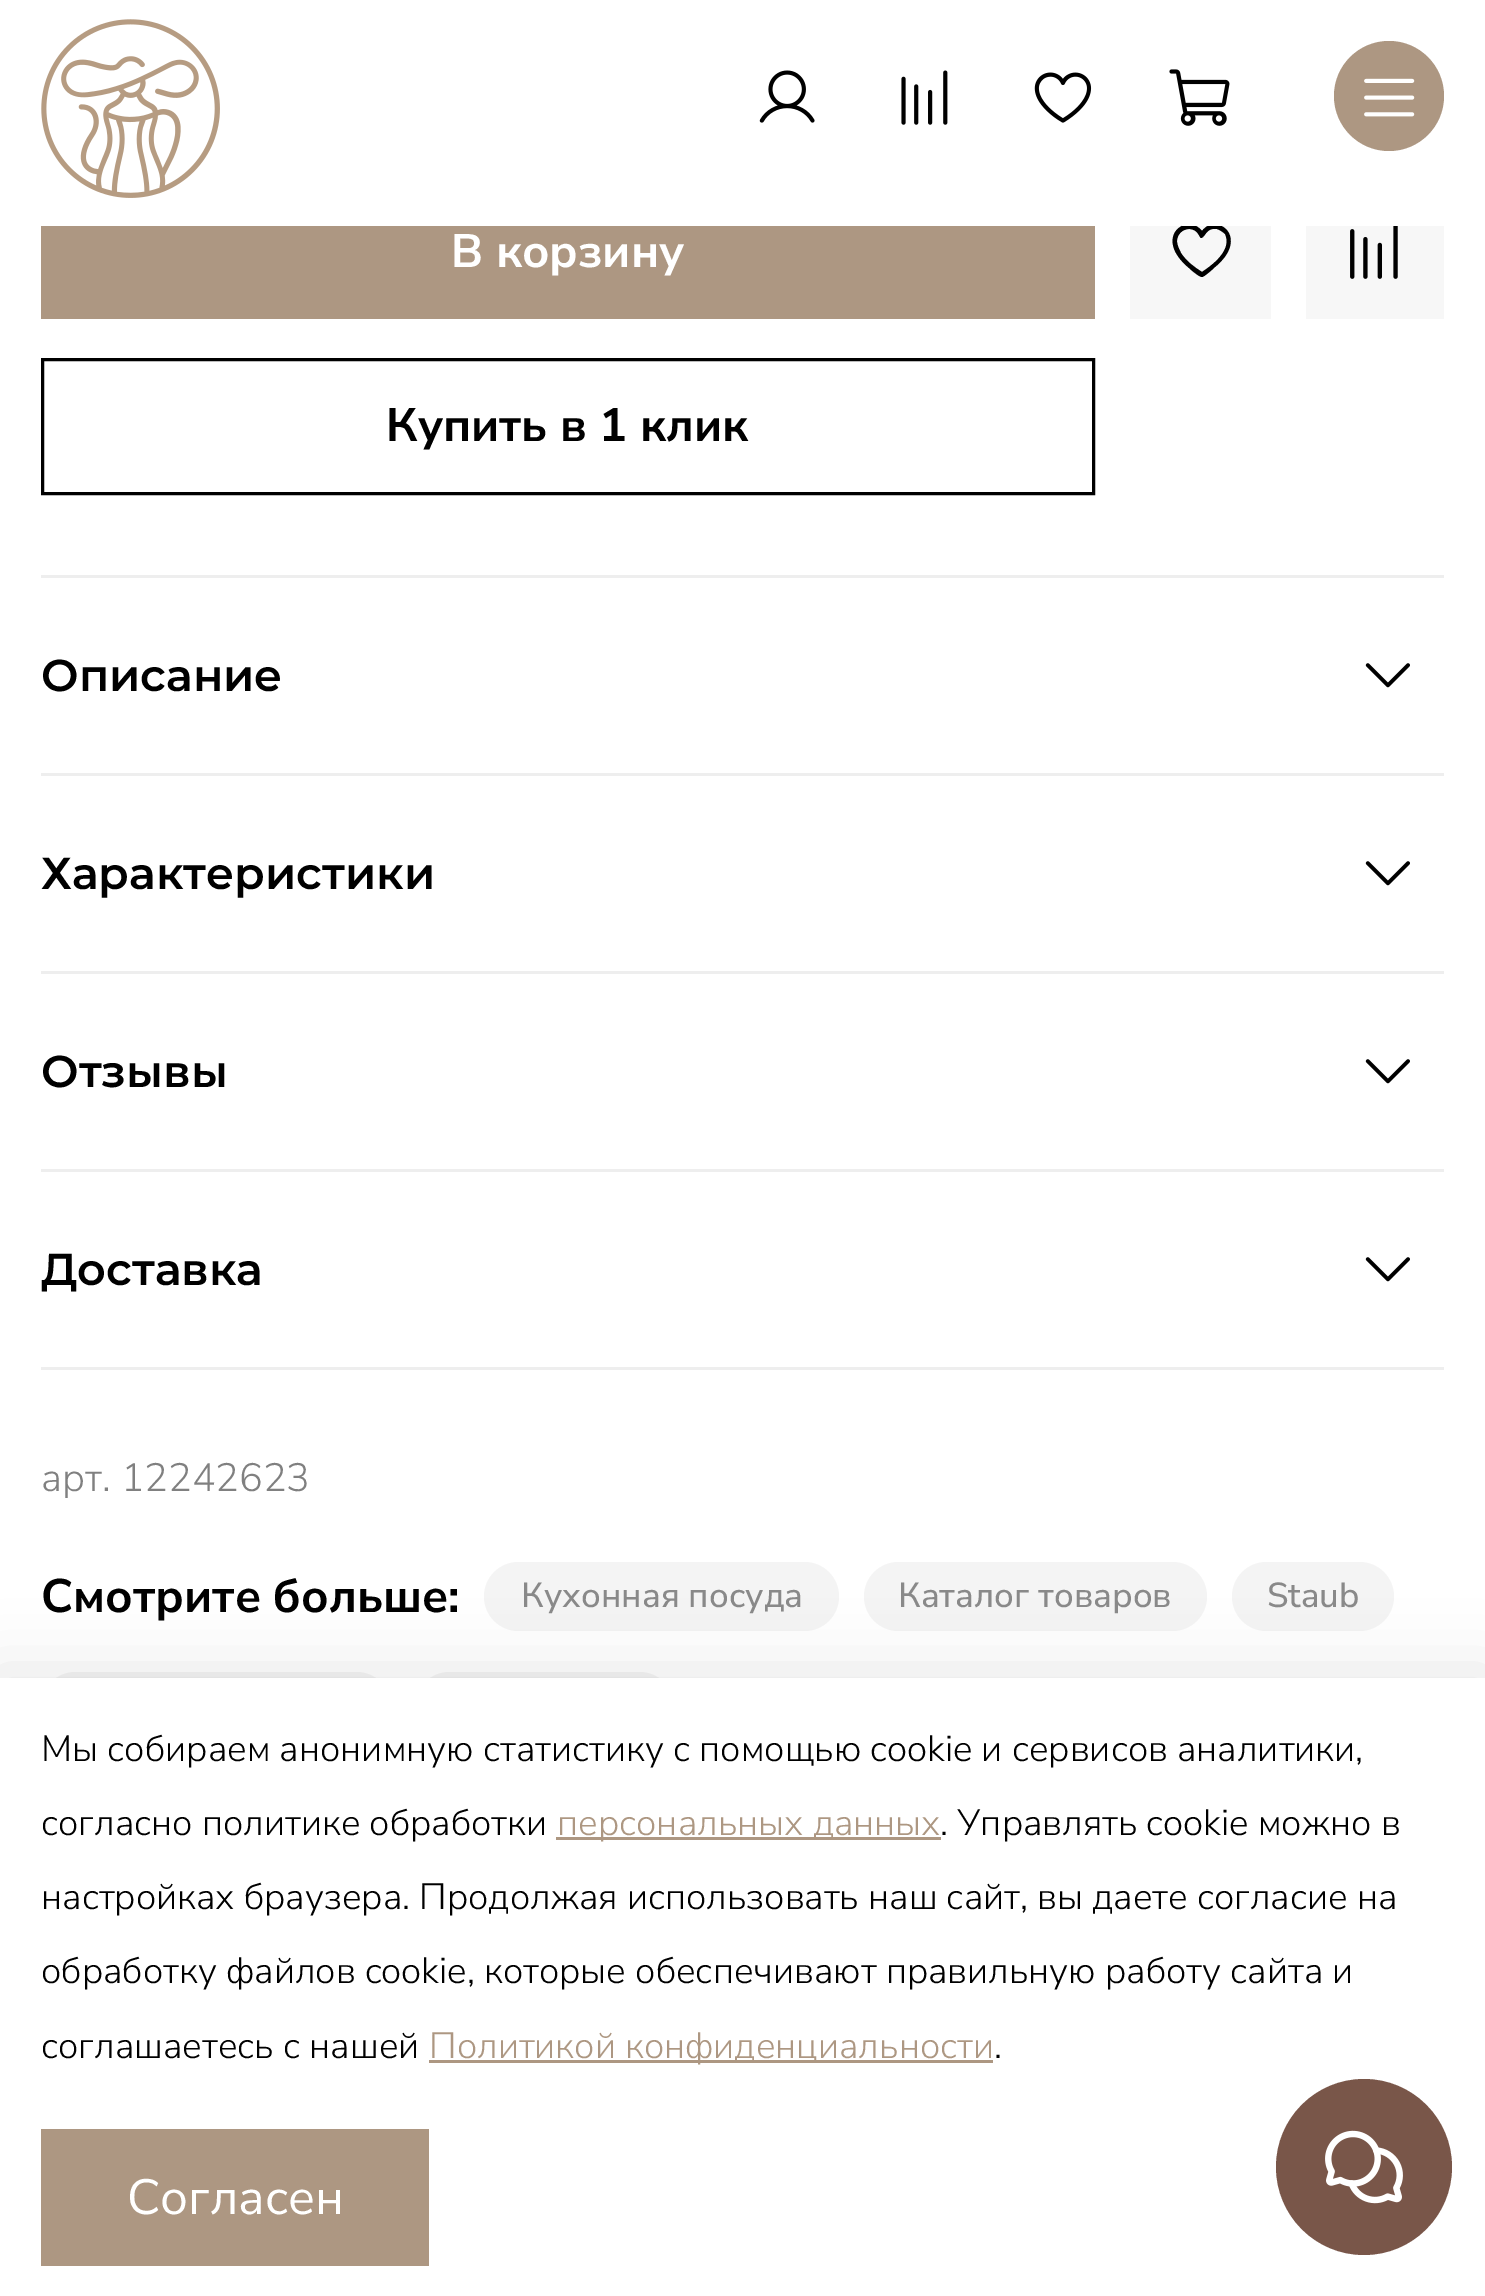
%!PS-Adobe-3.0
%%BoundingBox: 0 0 1485 2296
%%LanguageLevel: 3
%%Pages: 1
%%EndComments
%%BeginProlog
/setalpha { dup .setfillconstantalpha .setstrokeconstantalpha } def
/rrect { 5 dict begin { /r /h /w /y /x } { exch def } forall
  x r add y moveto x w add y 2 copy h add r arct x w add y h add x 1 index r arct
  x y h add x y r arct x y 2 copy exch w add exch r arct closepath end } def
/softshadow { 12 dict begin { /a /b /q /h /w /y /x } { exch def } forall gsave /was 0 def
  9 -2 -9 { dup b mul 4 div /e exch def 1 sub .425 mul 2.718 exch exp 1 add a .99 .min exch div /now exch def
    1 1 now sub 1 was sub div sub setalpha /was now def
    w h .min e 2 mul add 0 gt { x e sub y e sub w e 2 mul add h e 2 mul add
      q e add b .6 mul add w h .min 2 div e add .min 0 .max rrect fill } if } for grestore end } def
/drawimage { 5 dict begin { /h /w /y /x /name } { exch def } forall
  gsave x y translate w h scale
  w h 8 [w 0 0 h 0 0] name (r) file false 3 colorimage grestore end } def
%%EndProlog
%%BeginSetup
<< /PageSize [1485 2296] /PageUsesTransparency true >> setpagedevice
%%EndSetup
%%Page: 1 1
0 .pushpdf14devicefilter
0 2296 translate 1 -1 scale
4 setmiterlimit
1 setgray
0 0 1485 2296 rectfill
0.969 setgray
1130 226 141 93 rectfill
0 setgray
newpath 1202 277 moveto 1199 277 1190 269 1189 268 curveto 1152 237 1187 212 1202 231 curveto 1216 212 1251 237 1215 267 curveto 1213 269 1204 277 1202 277 curveto closepath 1189 229 moveto 1182 229 1177 235 1177 241 curveto 1177 245 1179 249 1181 253 curveto 1186 261 1194 267 1202 272 curveto 1211 266 1223 257 1226 246 curveto 1227 242 1227 238 1225 234 curveto 1223 232 1220 230 1217 229 curveto 1206 227 1205 238 1201 238 curveto 1199 237 1198 229 1189 229 curveto closepath fill
1 setgray
1182 224 40 2 rectfill
(images/1.raw) 41 19 179 179 drawimage
(images/2.raw) 759 70 56 53 drawimage
(images/3.raw) 901 70 47 55 drawimage
(images/4.raw) 1034 72 58 51 drawimage
(images/5.raw) 1169 69 61 57 drawimage
0.678 0.592 0.51 setrgbcolor
newpath 1389 96 55 0 360 arc closepath fill
(images/6.raw) 1364 78 51 39 drawimage
41 226 1054 93 rectfill
0 setgray
3 setlinewidth
42.5 359.5 1051 134 rectstroke
0.969 setgray
1306 226 138 93 rectfill
(images/7.raw) 1350 226 48 53 drawimage
0.933 setgray
41 575 1403 3 rectfill
(images/8.raw) 1365 663 45 25 drawimage
41 773 1403 3 rectfill
(images/8.raw) 1365 861 45 25 drawimage
41 971 1403 3 rectfill
(images/8.raw) 1365 1059 45 25 drawimage
41 1367 1403 3 rectfill
41 1169 1403 3 rectfill
(images/8.raw) 1365 1257 45 25 drawimage
0.957 setgray
484 1562 355 69 34.5 rrect fill
864 1562 343 69 34.5 rrect fill
1232 1562 162 69 34.5 rrect fill
41 1672 350 69 34.5 rrect fill
415 1672 259 69 34.5 rrect fill
0 setgray
-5 1669 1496 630 0 31.5 0.09 softshadow
1 setgray
0 1678 1485 618 rectfill
0.678 0.592 0.51 setrgbcolor
556 1837 385 3 rectfill
429 2060 564 3 rectfill
41 2129 388 137 rectfill
0.475 0.337 0.286 setrgbcolor
newpath 1364 2167 88 0 360 arc closepath fill
(images/9.raw) 1325 2130 78 74 drawimage
/NunitoSans-Bold [46.75 0 0 -46.75 0 0] selectfont
1 setgray
451 267 moveto (В корзину) show
0 setgray
386 441 moveto (Купить в 1 клик) show
/Montserrat-SemiBold [44.5 0 0 -44.5 0 0] selectfont
41 691 moveto (Описание) show
41 889 moveto (Характеристики) show
41 1087 moveto (Отзывы) show
41 1285 moveto (Доставка) show
/NunitoSans-Light [39.5 0 0 -39.5 0 0] selectfont
0.502 setgray
41 1491 moveto (арт. 12242623) show
/NunitoSans-Bold [47 0 0 -47 0 0] selectfont
0 setgray
41 1612 moveto (Смотрите больше:) show
/NunitoSans-Medium [34.75 0 0 -34.75 0 0] selectfont
0.537 setgray
521 1607 moveto (Кухонная посуда) show
898 1607 moveto (Каталог товаров) show
1267 1607 moveto (Staub) show
/NunitoSans-Light [36.65 0 0 -36.65 0 0] selectfont
0 setgray
41 1761 moveto (Мы собираем анонимную статистику с помощью cookie и сервисов аналитики,) show
41 1835 moveto (согласно политике обработки) show
0.678 0.592 0.51 setrgbcolor
557 1835 moveto (персональных данных) show
0 setgray
940 1835 moveto (. Управлять cookie можно в) show
41 1909 moveto (настройках браузера. Продолжая использовать наш сайт, вы даете согласие на) show
41 1983 moveto (обработку файлов cookie, которые обеспечивают правильную работу сайта и) show
41 2058 moveto (соглашаетесь с нашей) show
0.678 0.592 0.51 setrgbcolor
429 2058 moveto (Политикой конфиденциальности) show
0 setgray
994 2058 moveto (.) show
/NunitoSans-Regular [49.5 0 0 -49.5 0 0] selectfont
1 setgray
127 2214 moveto (Согласен) show
.poppdf14devicefilter showpage
%%EOF
